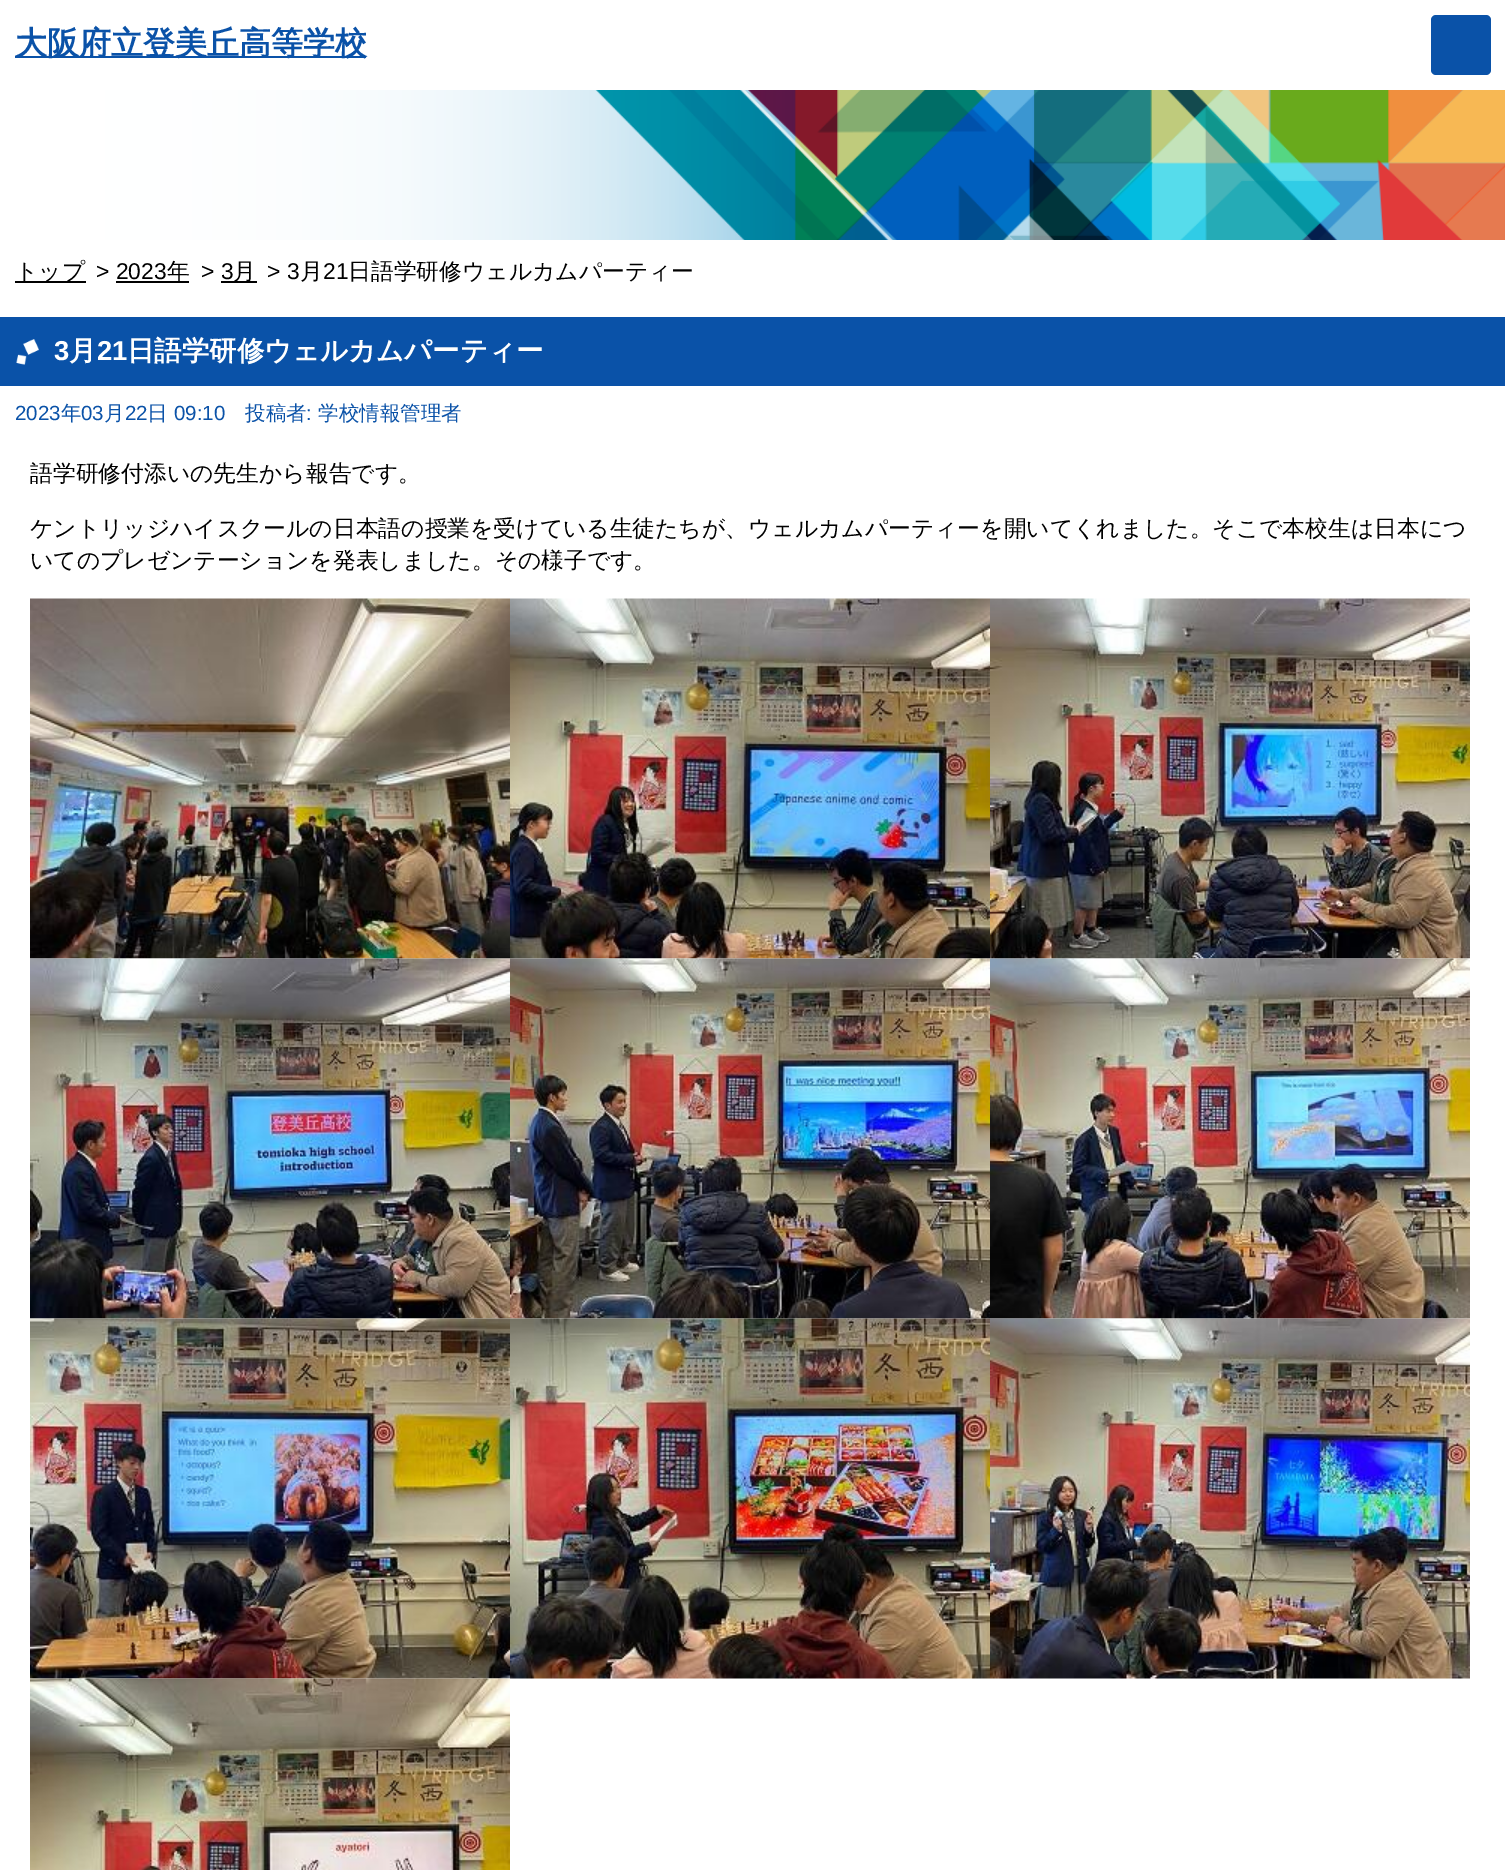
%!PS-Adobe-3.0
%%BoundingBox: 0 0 1505 1870
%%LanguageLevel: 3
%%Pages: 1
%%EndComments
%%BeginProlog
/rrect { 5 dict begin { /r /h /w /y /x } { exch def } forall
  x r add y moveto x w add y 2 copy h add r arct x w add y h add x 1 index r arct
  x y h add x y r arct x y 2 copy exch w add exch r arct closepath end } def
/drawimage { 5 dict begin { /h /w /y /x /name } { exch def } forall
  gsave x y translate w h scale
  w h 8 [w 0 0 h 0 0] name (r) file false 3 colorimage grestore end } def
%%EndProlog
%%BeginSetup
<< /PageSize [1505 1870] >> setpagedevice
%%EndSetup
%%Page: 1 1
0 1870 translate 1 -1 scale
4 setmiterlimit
1 setgray
0 0 1505 1870 rectfill
0.039 0.322 0.659 setrgbcolor
15 56 351 2 rectfill
1431 15 60 60 5 rrect fill
(images/1.raw) 0 90 1505 150 drawimage
0 setgray
15 281 71 2 rectfill
116 281 73 2 rectfill
221 281 36 2 rectfill
0.039 0.322 0.659 setrgbcolor
0 317 1505 69 rectfill
(images/2.raw) 16 339 23 26 drawimage
(images/3.raw) 30 598 480 361 drawimage
(images/4.raw) 510 598 480 361 drawimage
(images/5.raw) 990 598 480 361 drawimage
(images/6.raw) 30 958 480 361 drawimage
(images/7.raw) 510 958 480 361 drawimage
(images/8.raw) 990 958 480 361 drawimage
(images/9.raw) 30 1318 480 361 drawimage
(images/10.raw) 510 1318 480 361 drawimage
(images/11.raw) 990 1318 480 361 drawimage
(images/12.raw) 30 1678 480 192 drawimage
/WenQuanYiZenHei-Bold [32 0 0 -32 0 0] selectfont
15 54 moveto (大阪府立登美丘高等学校) show
/WenQuanYiZenHei-Medium [22.8 0 0 -22.8 0 0] selectfont
0 setgray
15 279 moveto (トップ) show
/LiberationSans-Regular [22.8 0 0 -22.8 0 0] selectfont
96 279 moveto (> 2023) show
/WenQuanYiZenHei-Medium [22.8 0 0 -22.8 0 0] selectfont
167 279 moveto (年) show
/LiberationSans-Regular [22.8 0 0 -22.8 0 0] selectfont
201 279 moveto (> 3) show
/WenQuanYiZenHei-Medium [22.8 0 0 -22.8 0 0] selectfont
233 279 moveto (月) show
/LiberationSans-Regular [22.8 0 0 -22.8 0 0] selectfont
267 279 moveto (> 3) show
/WenQuanYiZenHei-Medium [22.8 0 0 -22.8 0 0] selectfont
300 279 moveto (月) show
/LiberationSans-Regular [22.8 0 0 -22.8 0 0] selectfont
323 279 moveto (21) show
/WenQuanYiZenHei-Medium [22.8 0 0 -22.8 0 0] selectfont
348 279 moveto (日語学研修ウェルカムパーティー) show
/LiberationSans-Bold [27.4 0 0 -27.4 0 0] selectfont
1 setgray
54 360 moveto (3) show
/WenQuanYiZenHei-Bold [27.4 0 0 -27.4 0 0] selectfont
69 360 moveto (月) show
/LiberationSans-Bold [27.4 0 0 -27.4 0 0] selectfont
97 360 moveto (21) show
/WenQuanYiZenHei-Bold [27.4 0 0 -27.4 0 0] selectfont
127 360 moveto (日語学研修ウェルカムパーティー) show
/LiberationSans-Regular [20.5 0 0 -20.5 0 0] selectfont
0.039 0.322 0.659 setrgbcolor
15 420 moveto (2023) show
/WenQuanYiZenHei-Medium [20.5 0 0 -20.5 0 0] selectfont
61 420 moveto (年) show
/LiberationSans-Regular [20.5 0 0 -20.5 0 0] selectfont
81 420 moveto (03) show
/WenQuanYiZenHei-Medium [20.5 0 0 -20.5 0 0] selectfont
104 420 moveto (月) show
/LiberationSans-Regular [20.5 0 0 -20.5 0 0] selectfont
125 420 moveto (22) show
/WenQuanYiZenHei-Medium [20.5 0 0 -20.5 0 0] selectfont
147 420 moveto (日) show
/LiberationSans-Regular [20.5 0 0 -20.5 0 0] selectfont
174 420 moveto (09:10) show
/WenQuanYiZenHei-Medium [20.5 0 0 -20.5 0 0] selectfont
245 420 moveto (投稿者) show
/LiberationSans-Regular [20.5 0 0 -20.5 0 0] selectfont
306 420 moveto (:) show
/WenQuanYiZenHei-Medium [20.5 0 0 -20.5 0 0] selectfont
318 420 moveto (学校情報管理者) show
/WenQuanYiZenHei-Medium [22.8 0 0 -22.8 0 0] selectfont
0 setgray
30 481 moveto (語学研修付添いの先生から報告です。) show
30 536 moveto (ケントリッジハイスクールの日本語の授業を受けている生徒たちが、ウェルカムパーティーを開いてくれました。そこで本校生は日本につ) show
30 568 moveto (いてのプレゼンテーションを発表しました。その様子です。) show
showpage
%%EOF
